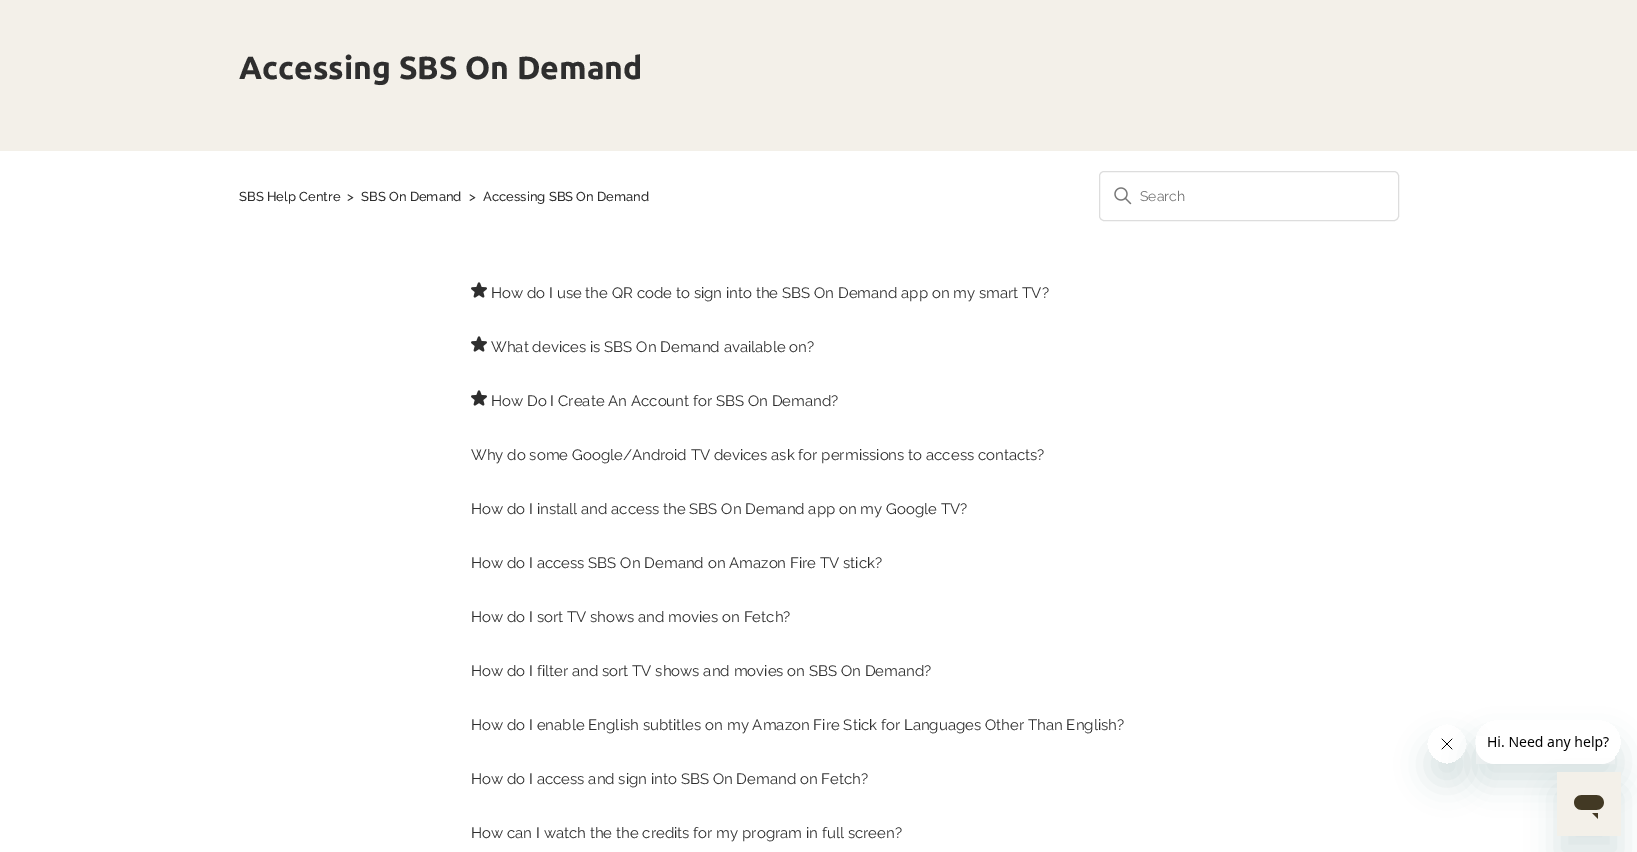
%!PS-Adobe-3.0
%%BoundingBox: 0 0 1637 852
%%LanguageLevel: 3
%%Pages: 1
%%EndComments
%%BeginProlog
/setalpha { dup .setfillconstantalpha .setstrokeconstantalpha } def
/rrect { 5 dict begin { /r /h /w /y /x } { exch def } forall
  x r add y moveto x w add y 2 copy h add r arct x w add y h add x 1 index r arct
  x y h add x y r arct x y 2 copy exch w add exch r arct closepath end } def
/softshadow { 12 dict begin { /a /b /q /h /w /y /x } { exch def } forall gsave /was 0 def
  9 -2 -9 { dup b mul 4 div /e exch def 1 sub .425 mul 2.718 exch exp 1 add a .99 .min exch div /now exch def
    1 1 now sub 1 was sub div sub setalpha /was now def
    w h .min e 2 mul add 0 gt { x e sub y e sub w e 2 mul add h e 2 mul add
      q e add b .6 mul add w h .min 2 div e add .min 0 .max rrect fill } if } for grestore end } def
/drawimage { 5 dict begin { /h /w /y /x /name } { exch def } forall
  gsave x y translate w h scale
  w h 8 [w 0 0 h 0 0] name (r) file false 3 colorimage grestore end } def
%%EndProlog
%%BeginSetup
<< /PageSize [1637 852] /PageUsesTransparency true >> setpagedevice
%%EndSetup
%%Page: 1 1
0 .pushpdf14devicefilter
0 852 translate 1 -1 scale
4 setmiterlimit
1 setgray
0 0 1637 852 rectfill
0.953 0.941 0.914 setrgbcolor
0 0 1637 151 rectfill
0.867 setgray
1099.5 171.5 299 49 4.5 rrect stroke
(images/1.raw) 1114 187 18 18 drawimage
(images/2.raw) 471 282 16 16 drawimage
(images/2.raw) 471 336 16 16 drawimage
(images/2.raw) 471 390 16 16 drawimage
gsave
newpath 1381 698 moveto 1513 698 lineto 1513 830 lineto 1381 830 lineto closepath 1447 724 moveto 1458 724 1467 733 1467 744 curveto 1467 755 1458 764 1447 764 curveto 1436 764 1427 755 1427 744 curveto 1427 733 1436 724 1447 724 curveto closepath eoclip newpath
0.09 0.286 0.302 setrgbcolor
1427 744 40 40 20 15 0.15 softshadow
grestore
(images/4.raw) 1441 738 12 12 drawimage
gsave
newpath 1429 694 moveto 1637 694 lineto 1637 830 lineto 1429 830 lineto closepath 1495 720 moveto 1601 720 lineto 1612 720 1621 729 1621 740 curveto 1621 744 lineto 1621 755 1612 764 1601 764 curveto 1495 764 lineto 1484 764 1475 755 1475 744 curveto 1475 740 lineto 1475 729 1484 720 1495 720 curveto closepath eoclip newpath
0.09 0.286 0.302 setrgbcolor
1475 740 146 44 20 15 0.15 softshadow
grestore
(images/3.raw) 1476 736 139 28 drawimage
0.09 0.286 0.302 setrgbcolor
1557 792 64 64 0 15 0.15 softshadow
(images/5.raw) 1557 772 64 64 drawimage
/Ubuntu-Bold [32 0 0 -32 0 0] selectfont
0.18 setgray
239 79 moveto (Accessing SBS On Demand) show
/Raleway-Medium [13 0 0 -13 0 0] selectfont
239 201 moveto (SBS Help Centre) show
347 201 moveto (>) show
361 201 moveto (SBS On Demand) show
469 201 moveto (>) show
483 201 moveto (Accessing SBS On Demand) show
/Raleway-Regular [14 0 0 -14 0 0] selectfont
0.459 setgray
1140 201 moveto (Search) show
/Raleway-Regular [15 0 0 -15 0 0] selectfont
0.18 setgray
491 298 moveto (How do I use the QR code to sign into the SBS On Demand app on my smart TV?) show
491 352 moveto (What devices is SBS On Demand available on?) show
491 406 moveto (How Do I Create An Account for SBS On Demand?) show
471 460 moveto (Why do some Google/Android TV devices ask for permissions to access contacts?) show
471 514 moveto (How do I install and access the SBS On Demand app on my Google TV?) show
471 568 moveto (How do I access SBS On Demand on Amazon Fire TV stick?) show
471 622 moveto (How do I sort TV shows and movies on Fetch?) show
471 676 moveto (How do I filter and sort TV shows and movies on SBS On Demand?) show
471 730 moveto (How do I enable English subtitles on my Amazon Fire Stick for Languages Other Than English?) show
471 784 moveto (How do I access and sign into SBS On Demand on Fetch?) show
471 838 moveto (How can I watch the the credits for my program in full screen?) show
.poppdf14devicefilter showpage
%%EOF
